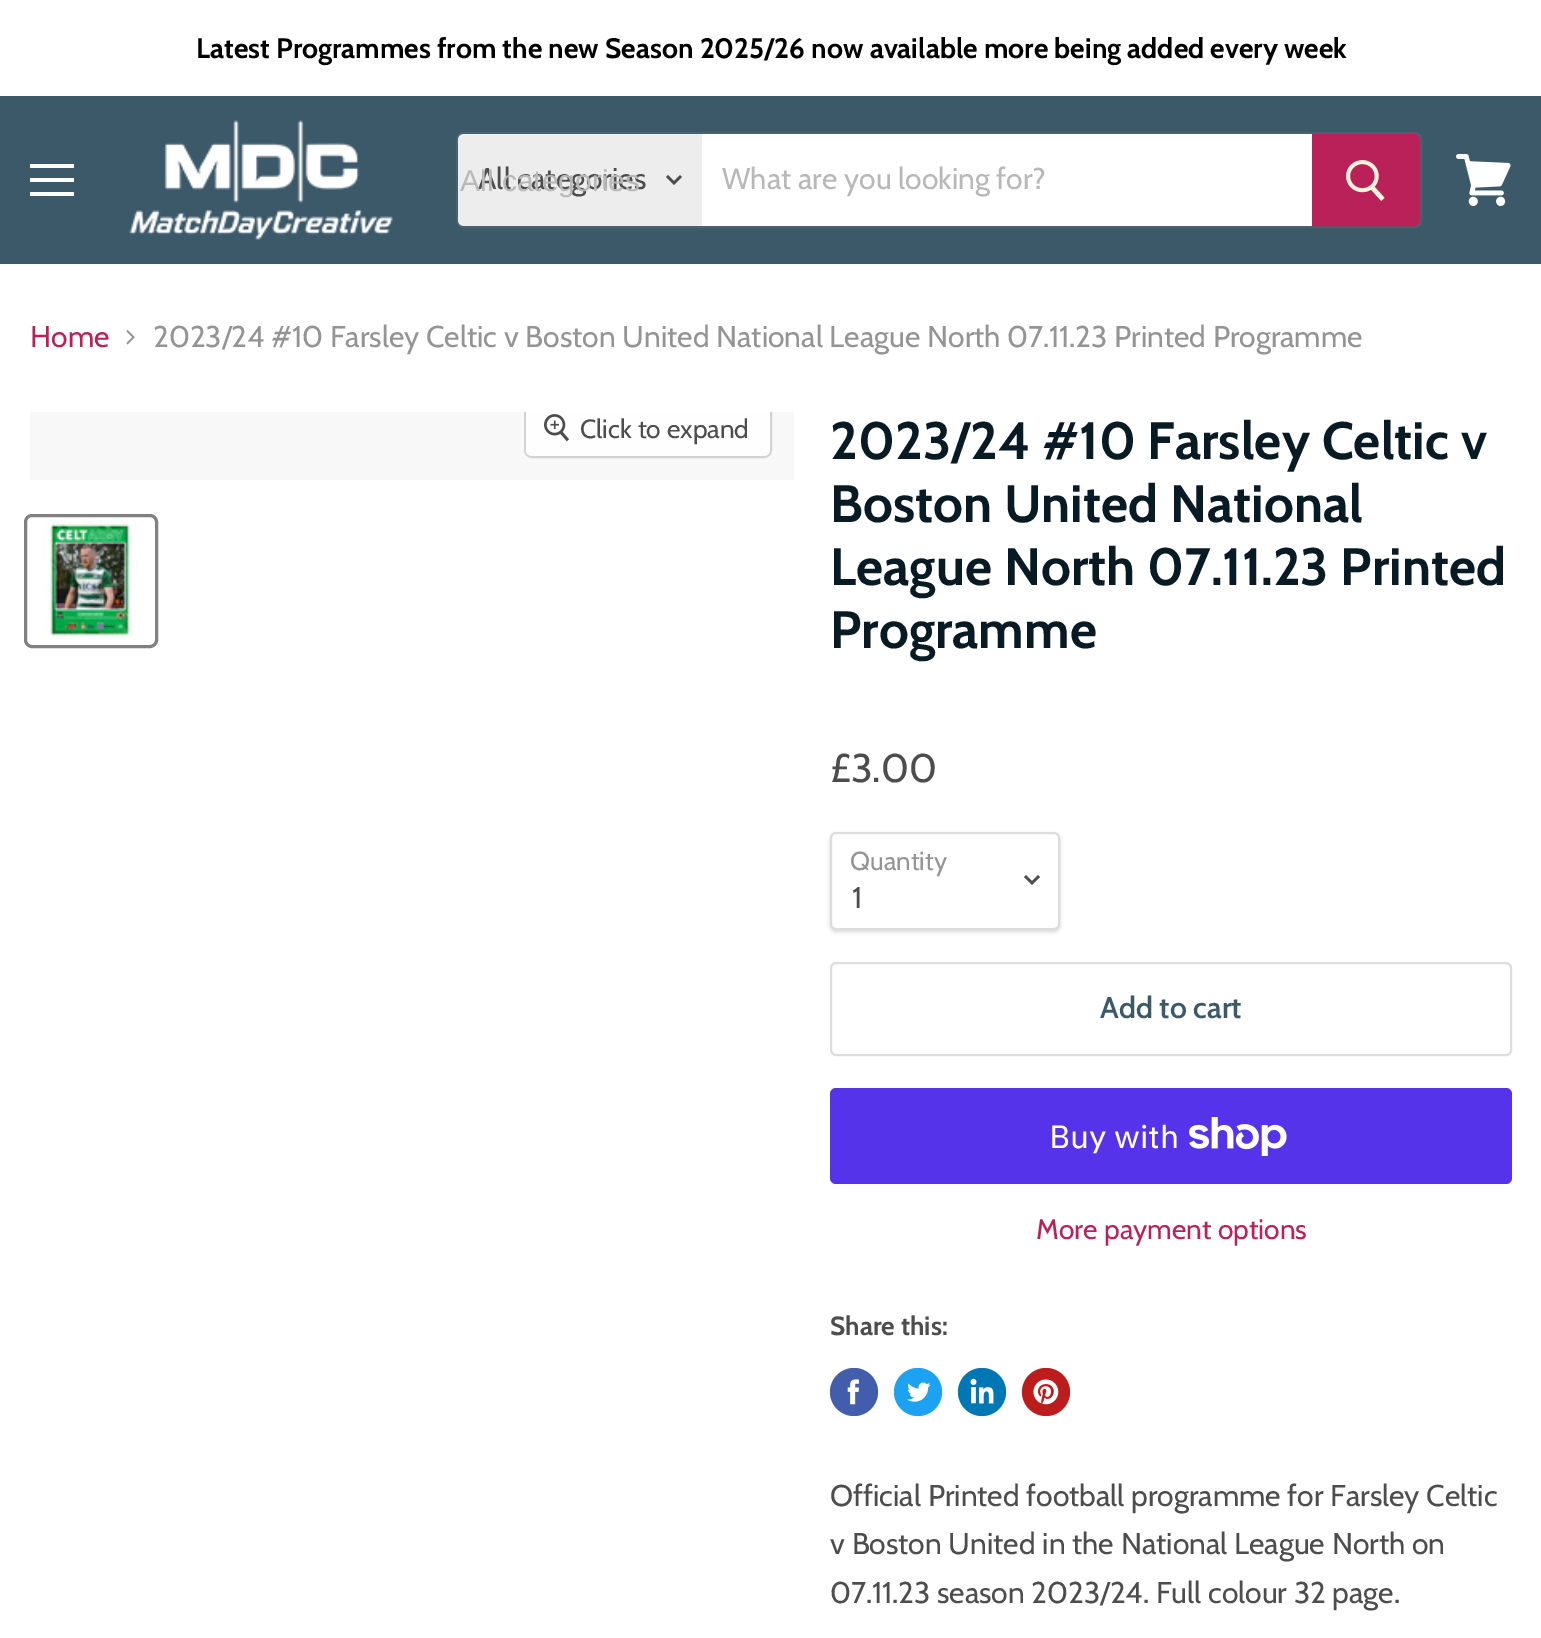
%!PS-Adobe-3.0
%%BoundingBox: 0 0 1541 1638
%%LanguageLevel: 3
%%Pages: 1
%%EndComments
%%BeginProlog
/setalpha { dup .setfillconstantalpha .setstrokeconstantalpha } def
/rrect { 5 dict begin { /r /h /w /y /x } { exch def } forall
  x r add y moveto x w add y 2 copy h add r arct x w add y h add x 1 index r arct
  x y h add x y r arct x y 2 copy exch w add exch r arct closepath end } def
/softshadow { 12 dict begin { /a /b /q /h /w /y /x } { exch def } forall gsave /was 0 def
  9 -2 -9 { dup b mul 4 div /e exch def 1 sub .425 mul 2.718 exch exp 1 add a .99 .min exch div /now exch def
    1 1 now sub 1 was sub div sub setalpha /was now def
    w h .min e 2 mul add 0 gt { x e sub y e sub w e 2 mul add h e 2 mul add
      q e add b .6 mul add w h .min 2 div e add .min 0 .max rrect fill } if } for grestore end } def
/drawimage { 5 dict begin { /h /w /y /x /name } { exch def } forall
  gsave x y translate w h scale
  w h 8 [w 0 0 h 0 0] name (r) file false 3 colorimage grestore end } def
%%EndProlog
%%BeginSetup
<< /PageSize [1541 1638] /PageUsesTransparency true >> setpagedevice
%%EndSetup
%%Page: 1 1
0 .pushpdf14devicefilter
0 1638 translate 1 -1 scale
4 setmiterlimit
1 setgray
0 0 1541 1638 rectfill
0.235 0.349 0.416 setrgbcolor
0 96 1541 168 rectfill
1 setgray
30 164 44 4 rectfill
30 178 44 4 rectfill
30 192 44 4 rectfill
(images/1.raw) 129 120 264 120 drawimage
0.2 setalpha
0.502 setgray
2 setlinewidth
457 133 964 94 7 rrect stroke
1 setalpha
0.929 setgray
newpath 464 134 moveto 702 134 lineto 702 226 lineto 464 226 lineto 460.5 226 458 223.5 458 220 curveto 458 140 lineto 458 136.5 460.5 134 464 134 curveto closepath fill
0.302 setgray
2.5 setlinewidth
2 setlinecap
newpath 674 183 moveto 680 177 lineto 674 183 moveto 668 177 lineto stroke
1 setgray
702 134 610 92 rectfill
0.733 0.129 0.349 setrgbcolor
newpath 1313 135 moveto 1414 135 lineto 1417 135 1419 137 1419 140 curveto 1419 220 lineto 1419 223 1417 225 1414 225 curveto 1313 225 lineto closepath gsave fill grestore
2 setlinewidth
0 setlinecap
stroke
(images/2.raw) 1346 160 39 41 drawimage
(images/3.raw) 1456 154 55 52 drawimage
(images/4.raw) 126 330 9 15 drawimage
0.973 setgray
30 412 764 68 rectfill
gsave
30 412 764 68 rectclip
0.827 setgray
525 401 246 56 7 rrect stroke
grestore
0.9 setalpha
1 setgray
newpath 526 412 moveto 770 412 lineto 770 450 lineto 770 453.5 767.5 456 764 456 curveto 532 456 lineto 528.5 456 526 453.5 526 450 curveto closepath fill
1 setalpha
(images/5.raw) 544 414 26 28 drawimage
0.506 setgray
3 setlinewidth
25.5 515.5 131 131 6.5 rrect stroke
(images/6.raw) 43 520 89 117 drawimage
0 setgray
830 834 230 98 6 2 0.15 softshadow
1 setgray
831 833 228 96 5 rrect gsave fill grestore
0.867 setgray
2 setlinewidth
stroke
0.302 setgray
2.5 setlinewidth
2 setlinecap
newpath 1032 883 moveto 1038 877 lineto 1032 883 moveto 1026 877 lineto stroke
0.867 setgray
2 setlinewidth
0 setlinecap
831 963 680 92 5 rrect stroke
0.329 0.2 0.922 setrgbcolor
830 1088 682 96 6 rrect fill
(images/7.raw) 1189 1117 98 39 drawimage
0.259 0.365 0.671 setrgbcolor
newpath 854 1392 24 0 360 arc closepath fill
(images/8.raw) 847 1379 12 26 drawimage
0.114 0.631 0.949 setrgbcolor
newpath 918 1392 24 0 360 arc closepath fill
(images/9.raw) 907 1382 24 20 drawimage
0 0.467 0.71 setrgbcolor
newpath 982 1392 24 0 360 arc closepath fill
(images/10.raw) 970 1378 24 26 drawimage
0.741 0.11 0.11 setrgbcolor
newpath 1046 1392 24 0 360 arc closepath fill
(images/11.raw) 1033 1379 26 26 drawimage
/Cabin-Bold [28.1 0 0 -28.1 0 0] selectfont
0 setgray
196 58 moveto (Latest Programmes from the new Season 2025/26 now available more being added every week) show
/Cabin-Regular [30 0 0 -30 0 0] selectfont
0.302 setgray
478 189 moveto (All categories) show
/LiberationSans-Regular [30 0 0 -30 0 0] selectfont
0.722 setgray
460 191 moveto (All categories) show
/Cabin-Regular [30 0 0 -30 0 0] selectfont
722 189 moveto (What are you looking for?) show
0.733 0.129 0.349 setrgbcolor
30 347 moveto (Home) show
0.58 setgray
153 347 moveto (2023/24 #10 Farsley Celtic v Boston United National League North 07.11.23 Printed Programme) show
/Cabin-Regular [26.25 0 0 -26.25 0 0] selectfont
0.302 setgray
580 438 moveto (Click to expand) show
/Cabin-Bold [52.5 0 0 -52.5 0 0] selectfont
0.031 0.106 0.145 setrgbcolor
830 459 moveto (2023/24 #10 Farsley Celtic v) show
830 522 moveto (Boston United National) show
830 585 moveto (League North 07.11.23 Printed) show
830 648 moveto (Programme) show
/Cabin-Regular [40 0 0 -40 0 0] selectfont
0.302 setgray
830 782 moveto (£3.00) show
/Cabin-Regular [26 0 0 -26 0 0] selectfont
0.58 setgray
850 870 moveto (Quantity) show
/Cabin-Regular [30 0 0 -30 0 0] selectfont
0.302 setgray
852 908 moveto (1) show
/Cabin-SemiBold [30 0 0 -30 0 0] selectfont
0.235 0.349 0.416 setrgbcolor
1100 1018 moveto (Add to cart) show
/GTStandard-Regular [32 0 0 -32 0 0] selectfont
1 setgray
1049 1148 moveto (Buy with) show
/Cabin-Regular [28.1 0 0 -28.1 0 0] selectfont
0.733 0.129 0.349 setrgbcolor
1036 1239 moveto (More payment options) show
/Cabin-Bold [26.25 0 0 -26.25 0 0] selectfont
0.302 setgray
830 1335 moveto (Share this:) show
/Cabin-Regular [30 0 0 -30 0 0] selectfont
830 1506 moveto (Official Printed football programme for Farsley Celtic) show
830 1554 moveto (v Boston United in the National League North on) show
830 1603 moveto (07.11.23 season 2023/24. Full colour 32 page.) show
.poppdf14devicefilter showpage
%%EOF
